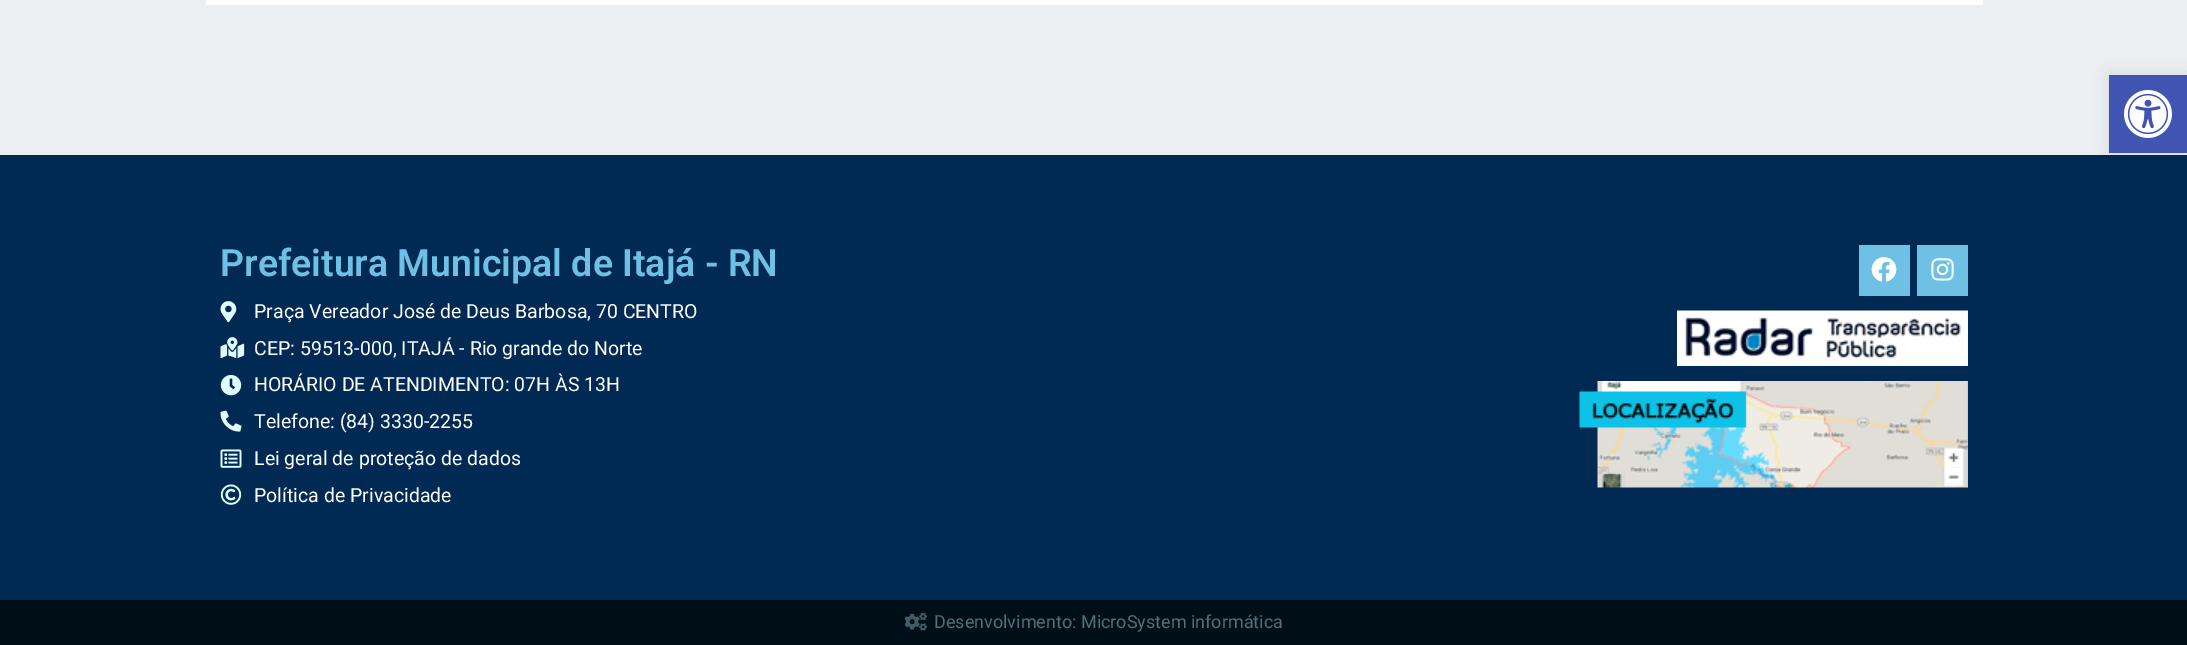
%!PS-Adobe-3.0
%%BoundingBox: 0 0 2187 645
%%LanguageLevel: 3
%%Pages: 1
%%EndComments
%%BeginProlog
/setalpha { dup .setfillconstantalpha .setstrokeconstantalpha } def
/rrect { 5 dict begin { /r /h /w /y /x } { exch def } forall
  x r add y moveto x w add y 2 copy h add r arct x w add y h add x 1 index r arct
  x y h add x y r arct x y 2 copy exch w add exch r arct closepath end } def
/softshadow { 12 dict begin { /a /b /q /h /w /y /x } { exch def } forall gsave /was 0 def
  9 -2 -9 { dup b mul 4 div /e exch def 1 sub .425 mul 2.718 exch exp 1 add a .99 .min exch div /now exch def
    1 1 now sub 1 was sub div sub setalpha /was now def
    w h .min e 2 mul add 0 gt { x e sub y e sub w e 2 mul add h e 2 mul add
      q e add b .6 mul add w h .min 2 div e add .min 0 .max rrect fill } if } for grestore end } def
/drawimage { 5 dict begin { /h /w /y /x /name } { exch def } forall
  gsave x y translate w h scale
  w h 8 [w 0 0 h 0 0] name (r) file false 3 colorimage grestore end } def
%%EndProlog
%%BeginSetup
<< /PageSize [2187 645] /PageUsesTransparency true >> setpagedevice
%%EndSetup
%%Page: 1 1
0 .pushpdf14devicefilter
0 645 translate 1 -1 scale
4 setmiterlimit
0.922 0.937 0.949 setrgbcolor
0 0 2187 645 rectfill
1 setgray
206 0 1777 5 rectfill
0 0.161 0.325 setrgbcolor
0 155 2187 445 rectfill
0 setgray
2109 75 78 78 0 7.5 0.1 softshadow
0.251 0.329 0.698 setrgbcolor
2109 75 78 78 rectfill
(images/1.raw) 2124 90 48 48 drawimage
(images/2.raw) 220 301 17 22 drawimage
(images/3.raw) 220 337 25 22 drawimage
(images/4.raw) 220 375 22 21 drawimage
(images/5.raw) 220 410 22 22 drawimage
(images/6.raw) 220 449 22 19 drawimage
(images/7.raw) 220 484 22 21 drawimage
0.431 0.757 0.894 setrgbcolor
1859 245 51 51 rectfill
(images/8.raw) 1871 257 26 25 drawimage
1917 245 51 51 rectfill
(images/9.raw) 1931 258 23 23 drawimage
(images/10.raw) 1677 310 291 56 drawimage
(images/11.raw) 1579 381 389 107 drawimage
0 0.055 0.094 setrgbcolor
0 600 2187 45 rectfill
(images/12.raw) 905 612 22 19 drawimage
/Roboto-SemiBold [37.5 0 0 -37.5 0 0] selectfont
0.431 0.757 0.894 setrgbcolor
220 276 moveto (Prefeitura Municipal de Itajá - RN) show
/Roboto-Regular [19.5 0 0 -19.5 0 0] selectfont
1 setgray
254 318 moveto (Praça Vereador José de Deus Barbosa, 70 CENTRO) show
254 355 moveto (CEP: 59513-000, ITAJÁ - Rio grande do Norte) show
254 391 moveto (HORÁRIO DE ATENDIMENTO: 07H ÀS 13H) show
254 428 moveto (Telefone: \(84\) 3330-2255) show
254 465 moveto (Lei geral de proteção de dados) show
254 502 moveto (Política de Privacidade) show
/Roboto-Regular [18 0 0 -18 0 0] selectfont
0.31 0.435 0.486 setrgbcolor
934 628 moveto (Desenvolvimento: MicroSystem informática) show
.poppdf14devicefilter showpage
%%EOF
